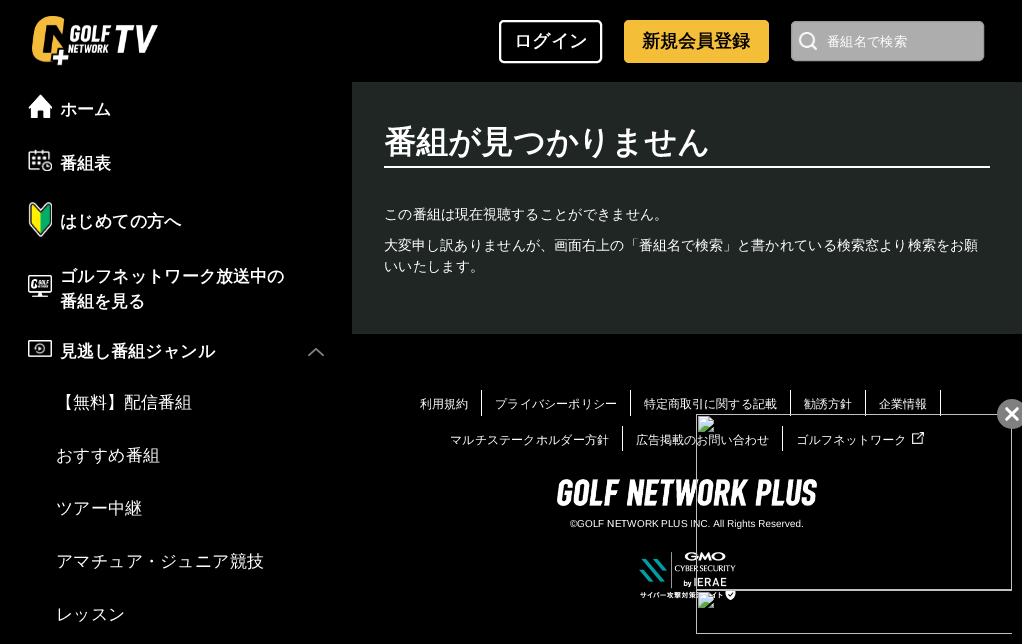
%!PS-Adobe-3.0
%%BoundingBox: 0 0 1022 644
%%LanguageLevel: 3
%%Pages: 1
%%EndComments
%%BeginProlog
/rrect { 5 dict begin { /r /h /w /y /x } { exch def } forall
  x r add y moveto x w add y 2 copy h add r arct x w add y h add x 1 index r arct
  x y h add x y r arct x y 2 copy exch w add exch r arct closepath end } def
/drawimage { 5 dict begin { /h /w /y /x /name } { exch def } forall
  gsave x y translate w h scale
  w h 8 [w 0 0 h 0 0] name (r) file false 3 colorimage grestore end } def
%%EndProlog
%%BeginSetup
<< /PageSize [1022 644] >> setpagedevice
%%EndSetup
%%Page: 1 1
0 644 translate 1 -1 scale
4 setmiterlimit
0 setgray
0 0 1022 644 rectfill
(images/1.raw) 32 16 126 50 drawimage
1 setgray
2 setlinewidth
500 21 101 41 4 rrect stroke
0.961 0.745 0.224 setrgbcolor
624 20 145 43 5 rrect fill
0.678 setgray
791.5 21.5 192 39 4.5 rrect gsave fill grestore
0.6 setgray
1 setlinewidth
stroke
(images/2.raw) 798 32 19 18 drawimage
(images/3.raw) 28 94 24 24 drawimage
(images/4.raw) 28 149 24 22 drawimage
(images/5.raw) 28 202 24 35 drawimage
(images/6.raw) 28 275 24 22 drawimage
(images/7.raw) 28 340 24 17 drawimage
(images/8.raw) 308 348 16 8 drawimage
0.125 0.149 0.141 setrgbcolor
352 82 670 252 rectfill
1 setgray
384 166 606 2 rectfill
481 390 1 26 rectfill
630 390 1 26 rectfill
790 390 1 26 rectfill
865 390 1 26 rectfill
940 390 1 26 rectfill
622 426 1 25 rectfill
782 426 1 25 rectfill
(images/9.raw) 912 432 12 12 drawimage
(images/10.raw) 557 479 260 27 drawimage
(images/11.raw) 639 552 97 48 drawimage
/WenQuanYiZenHei-Bold [18 0 0 -18 0 0] selectfont
514 47 moveto (ログイン) show
0 setgray
642 47 moveto (新規会員登録) show
/WenQuanYiZenHei-Medium [13.25 0 0 -13.25 0 0] selectfont
1 setgray
827 46 moveto (番組名で検索) show
/WenQuanYiZenHei-Bold [17 0 0 -17 0 0] selectfont
60 115 moveto (ホーム) show
60 169 moveto (番組表) show
60 227 moveto (はじめての方へ) show
60 282 moveto (ゴルフネットワーク放送中の) show
60 307 moveto (番組を見る) show
60 357 moveto (見逃し番組ジャンル) show
/WenQuanYiZenHei-Medium [17 0 0 -17 0 0] selectfont
56 408 moveto (【無料】配信番組) show
56 461 moveto (おすすめ番組) show
56 514 moveto (ツアー中継) show
56 567 moveto (アマチュア・ジュニア競技) show
56 620 moveto (レッスン) show
/WenQuanYiZenHei-Bold [32 0 0 -32 0 0] selectfont
384 153 moveto (番組が見つかりません) show
/WenQuanYiZenHei-Medium [14 0 0 -14 0 0] selectfont
384 219 moveto (この番組は現在視聴することができません。) show
384 250 moveto (大変申し訳ありませんが、画面右上の「番組名で検索」と書かれている検索窓より検索をお願) show
384 271 moveto (いいたします。) show
/WenQuanYiZenHei-Medium [12 0 0 -12 0 0] selectfont
420 408 moveto (利用規約) show
495 408 moveto (プライバシーポリシー) show
644 408 moveto (特定商取引に関する記載) show
804 408 moveto (勧誘方針) show
879 408 moveto (企業情報) show
450 444 moveto (マルチステークホルダー方針) show
636 444 moveto (広告掲載のお問い合わせ) show
796 444 moveto (ゴルフネットワーク) show
/LiberationSans-Regular [10 0 0 -10 0 0] selectfont
570 527 moveto (©GOLF NETWORK PLUS INC. All Rights Reserved.) show
(images/13.raw) 696 414 316 220 drawimage
(images/12.raw) 997 399 25 30 drawimage
showpage
%%EOF
